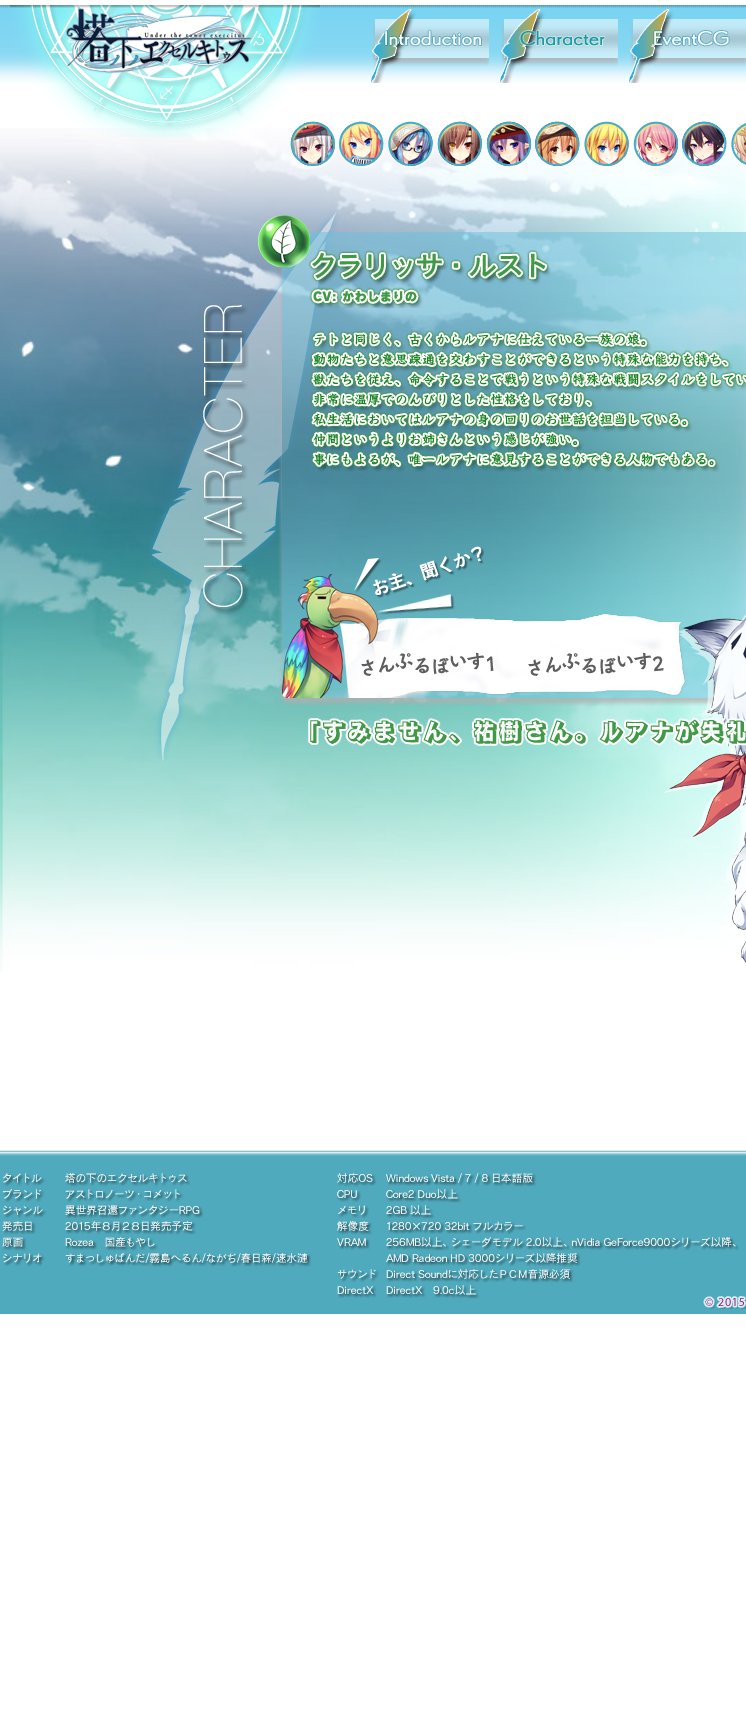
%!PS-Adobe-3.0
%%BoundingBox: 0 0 746 1720
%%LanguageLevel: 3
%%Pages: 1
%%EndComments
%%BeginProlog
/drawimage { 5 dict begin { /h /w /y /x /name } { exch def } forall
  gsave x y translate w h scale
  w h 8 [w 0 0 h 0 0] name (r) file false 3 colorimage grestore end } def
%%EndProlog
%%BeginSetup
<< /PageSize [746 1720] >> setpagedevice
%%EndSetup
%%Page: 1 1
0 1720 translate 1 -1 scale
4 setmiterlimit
1 setgray
0 0 746 1720 rectfill
(images/1.raw) 0 5 746 78 drawimage
(images/6.raw) 0 128 746 844 drawimage
(images/8.raw) 290 121 45 47 drawimage
(images/2.raw) 10 5 310 133 drawimage
(images/3.raw) 370 9 119 74 drawimage
(images/4.raw) 499 9 119 74 drawimage
(images/5.raw) 628 9 118 74 drawimage
(images/7.raw) 149 211 190 550 drawimage
(images/9.raw) 339 121 45 47 drawimage
(images/10.raw) 388 121 46 47 drawimage
(images/11.raw) 437 121 45 47 drawimage
(images/12.raw) 486 121 46 47 drawimage
(images/13.raw) 535 121 45 47 drawimage
(images/14.raw) 584 121 45 46 drawimage
(images/15.raw) 633 121 46 47 drawimage
(images/16.raw) 682 121 45 47 drawimage
(images/17.raw) 731 123 15 43 drawimage
(images/18.raw) 279 232 467 474 drawimage
(images/19.raw) 258 215 52 52 drawimage
(images/20.raw) 308 250 243 58 drawimage
(images/21.raw) 309 330 437 142 drawimage
(images/22.raw) 361 652 133 24 drawimage
(images/23.raw) 528 652 136 24 drawimage
(images/24.raw) 664 614 82 349 drawimage
(images/25.raw) 308 717 438 29 drawimage
(images/26.raw) 0 1150 746 164 drawimage
(images/27.raw) 2 1173 737 126 drawimage
(images/28.raw) 703 1296 43 13 drawimage
showpage
%%EOF
